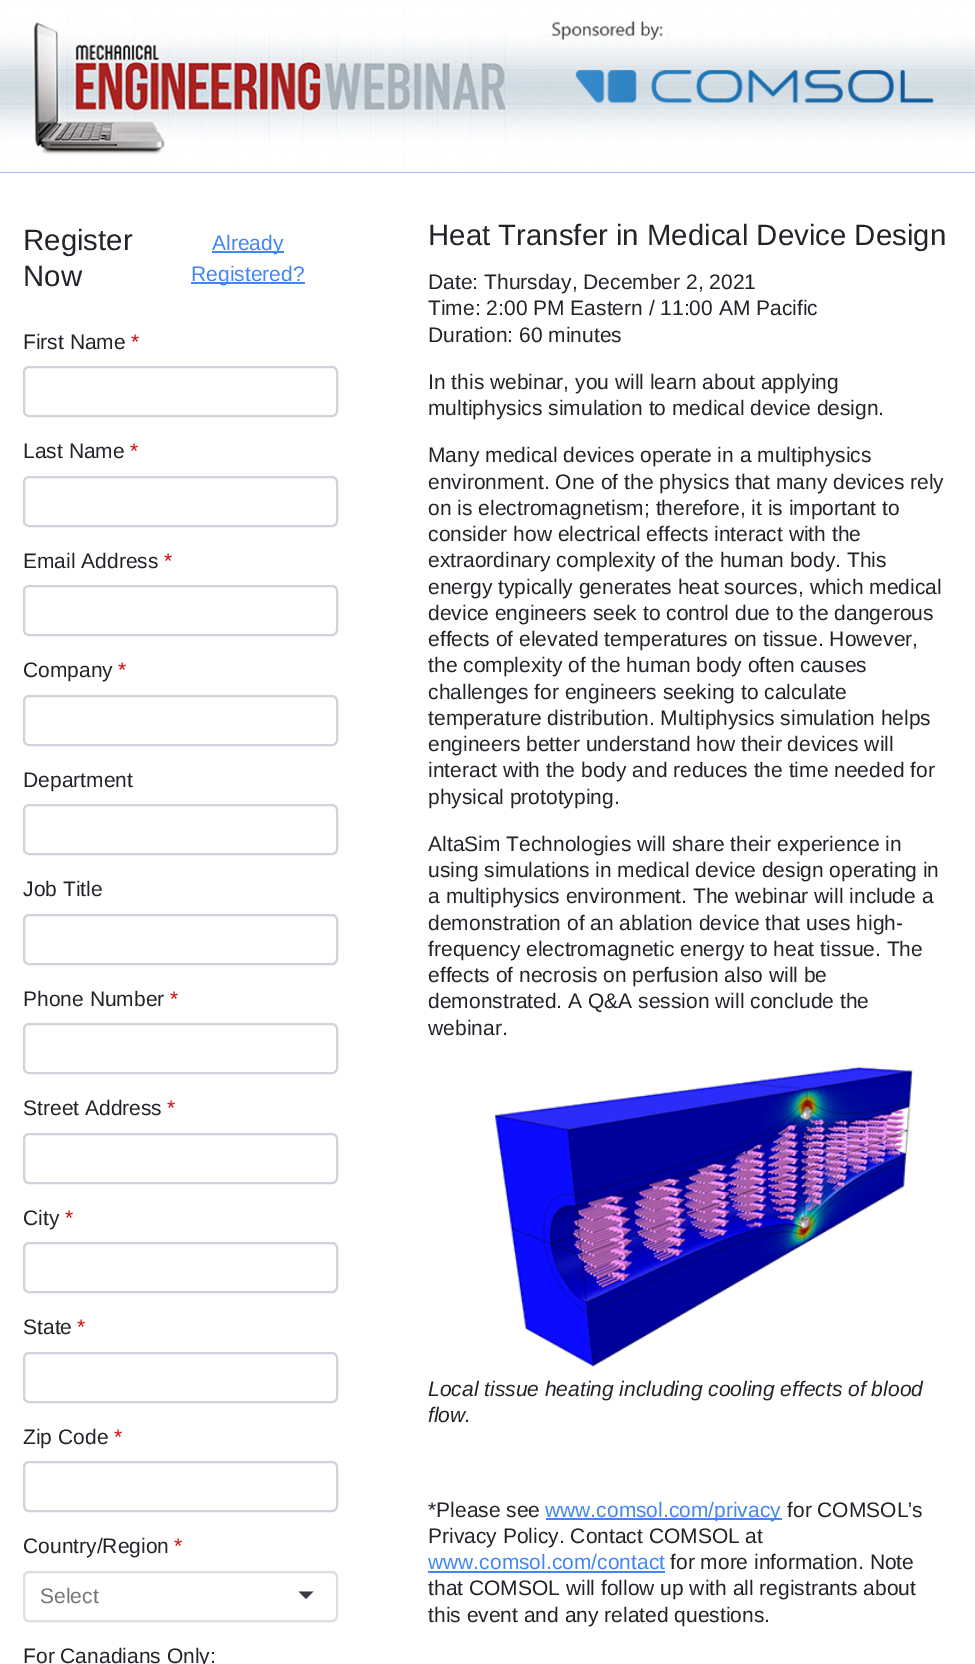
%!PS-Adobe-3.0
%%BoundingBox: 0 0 975 1664
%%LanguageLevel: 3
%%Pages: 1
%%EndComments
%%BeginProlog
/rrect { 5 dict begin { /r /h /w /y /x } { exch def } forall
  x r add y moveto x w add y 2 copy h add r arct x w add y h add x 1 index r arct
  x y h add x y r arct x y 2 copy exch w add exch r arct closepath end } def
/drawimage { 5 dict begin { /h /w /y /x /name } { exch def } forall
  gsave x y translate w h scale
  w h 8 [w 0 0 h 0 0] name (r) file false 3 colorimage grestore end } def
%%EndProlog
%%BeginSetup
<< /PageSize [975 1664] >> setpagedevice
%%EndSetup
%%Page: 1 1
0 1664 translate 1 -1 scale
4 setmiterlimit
1 setgray
0 0 975 1664 rectfill
0.259 0.522 0.957 setrgbcolor
0 172 975 1 rectfill
(images/1.raw) 0 0 975 173 drawimage
212 251 72 2 rectfill
191 282 114 2 rectfill
0.808 0.831 0.855 setrgbcolor
2 setlinewidth
24 367 313 49 5 rrect stroke
24 477 313 49 5 rrect stroke
24 586 313 49 5 rrect stroke
24 696 313 49 5 rrect stroke
24 805 313 49 5 rrect stroke
24 915 313 49 5 rrect stroke
24 1024 313 49 5 rrect stroke
24 1134 313 49 5 rrect stroke
24 1243 313 49 5 rrect stroke
24 1353 313 49 5 rrect stroke
24 1462 313 49 5 rrect stroke
0.871 setgray
24 1572 313 49 5 rrect stroke
0.204 0.227 0.251 setrgbcolor
newpath 298.5 1591.5 moveto 313.5 1591.5 lineto 306 1599 lineto closepath fill
(images/2.raw) 494 1066 419 301 drawimage
0.259 0.522 0.957 setrgbcolor
546 1518 236 2 rectfill
428 1571 237 2 rectfill
/LiberationSans-Regular [29.4 0 0 -29.4 0 0] selectfont
0.129 0.145 0.161 setrgbcolor
23 250 moveto (Register) show
23 286 moveto (Now) show
/LiberationSans-Regular [21 0 0 -21 0 0] selectfont
0.259 0.522 0.957 setrgbcolor
212 250 moveto (Already) show
191 281 moveto (Registered?) show
0.129 0.145 0.161 setrgbcolor
23 349 moveto (First Name) show
0.816 0.027 0.027 setrgbcolor
131 349 moveto (*) show
0.129 0.145 0.161 setrgbcolor
23 458 moveto (Last Name) show
0.816 0.027 0.027 setrgbcolor
130 458 moveto (*) show
0.129 0.145 0.161 setrgbcolor
23 568 moveto (Email Address) show
0.816 0.027 0.027 setrgbcolor
164 568 moveto (*) show
0.129 0.145 0.161 setrgbcolor
23 677 moveto (Company) show
0.816 0.027 0.027 setrgbcolor
118 677 moveto (*) show
0.129 0.145 0.161 setrgbcolor
23 787 moveto (Department) show
23 896 moveto (Job Title) show
23 1006 moveto (Phone Number) show
0.816 0.027 0.027 setrgbcolor
170 1006 moveto (*) show
0.129 0.145 0.161 setrgbcolor
23 1115 moveto (Street Address) show
0.816 0.027 0.027 setrgbcolor
167 1115 moveto (*) show
0.129 0.145 0.161 setrgbcolor
23 1225 moveto (City) show
0.816 0.027 0.027 setrgbcolor
65 1225 moveto (*) show
0.129 0.145 0.161 setrgbcolor
23 1334 moveto (State) show
0.816 0.027 0.027 setrgbcolor
77 1334 moveto (*) show
0.129 0.145 0.161 setrgbcolor
23 1444 moveto (Zip Code) show
0.816 0.027 0.027 setrgbcolor
114 1444 moveto (*) show
0.129 0.145 0.161 setrgbcolor
23 1553 moveto (Country/Region) show
0.816 0.027 0.027 setrgbcolor
174 1553 moveto (*) show
0.459 setgray
40 1603 moveto (Select) show
0.129 0.145 0.161 setrgbcolor
23 1663 moveto (For Canadians Only:) show
/LiberationSans-Regular [29.4 0 0 -29.4 0 0] selectfont
428 245 moveto (Heat Transfer in Medical Device Design) show
/LiberationSans-Regular [21 0 0 -21 0 0] selectfont
428 289 moveto (Date: Thursday, December 2, 2021) show
428 315 moveto (Time: 2:00 PM Eastern / 11:00 AM Pacific) show
428 342 moveto (Duration: 60 minutes) show
428 389 moveto (In this webinar, you will learn about applying) show
428 415 moveto (multiphysics simulation to medical device design.) show
428 462 moveto (Many medical devices operate in a multiphysics) show
428 489 moveto (environment. One of the physics that many devices rely) show
428 515 moveto (on is electromagnetism; therefore, it is important to) show
428 541 moveto (consider how electrical effects interact with the) show
428 567 moveto (extraordinary complexity of the human body. This) show
428 594 moveto (energy typically generates heat sources, which medical) show
428 620 moveto (device engineers seek to control due to the dangerous) show
428 646 moveto (effects of elevated temperatures on tissue. However,) show
428 672 moveto (the complexity of the human body often causes) show
428 699 moveto (challenges for engineers seeking to calculate) show
428 725 moveto (temperature distribution. Multiphysics simulation helps) show
428 751 moveto (engineers better understand how their devices will) show
428 777 moveto (interact with the body and reduces the time needed for) show
428 804 moveto (physical prototyping.) show
428 851 moveto (AltaSim Technologies will share their experience in) show
428 877 moveto (using simulations in medical device design operating in) show
428 903 moveto (a multiphysics environment. The webinar will include a) show
428 930 moveto (demonstration of an ablation device that uses high-) show
428 956 moveto (frequency electromagnetic energy to heat tissue. The) show
428 982 moveto (effects of necrosis on perfusion also will be) show
428 1008 moveto (demonstrated. A Q&A session will conclude the) show
428 1035 moveto (webinar.) show
/LiberationSans-Italic [21 0 0 -21 0 0] selectfont
428 1396 moveto (Local tissue heating including cooling effects of blood) show
428 1422 moveto (flow.) show
/LiberationSans-Regular [21 0 0 -21 0 0] selectfont
428 1517 moveto (*Please see) show
0.259 0.522 0.957 setrgbcolor
545 1517 moveto (www.comsol.com/privacy) show
0.129 0.145 0.161 setrgbcolor
787 1517 moveto (for COMSOL's) show
428 1543 moveto (Privacy Policy. Contact COMSOL at) show
0.259 0.522 0.957 setrgbcolor
428 1569 moveto (www.comsol.com/contact) show
0.129 0.145 0.161 setrgbcolor
670 1569 moveto (for more information. Note) show
428 1595 moveto (that COMSOL will follow up with all registrants about) show
428 1622 moveto (this event and any related questions.) show
showpage
%%EOF
